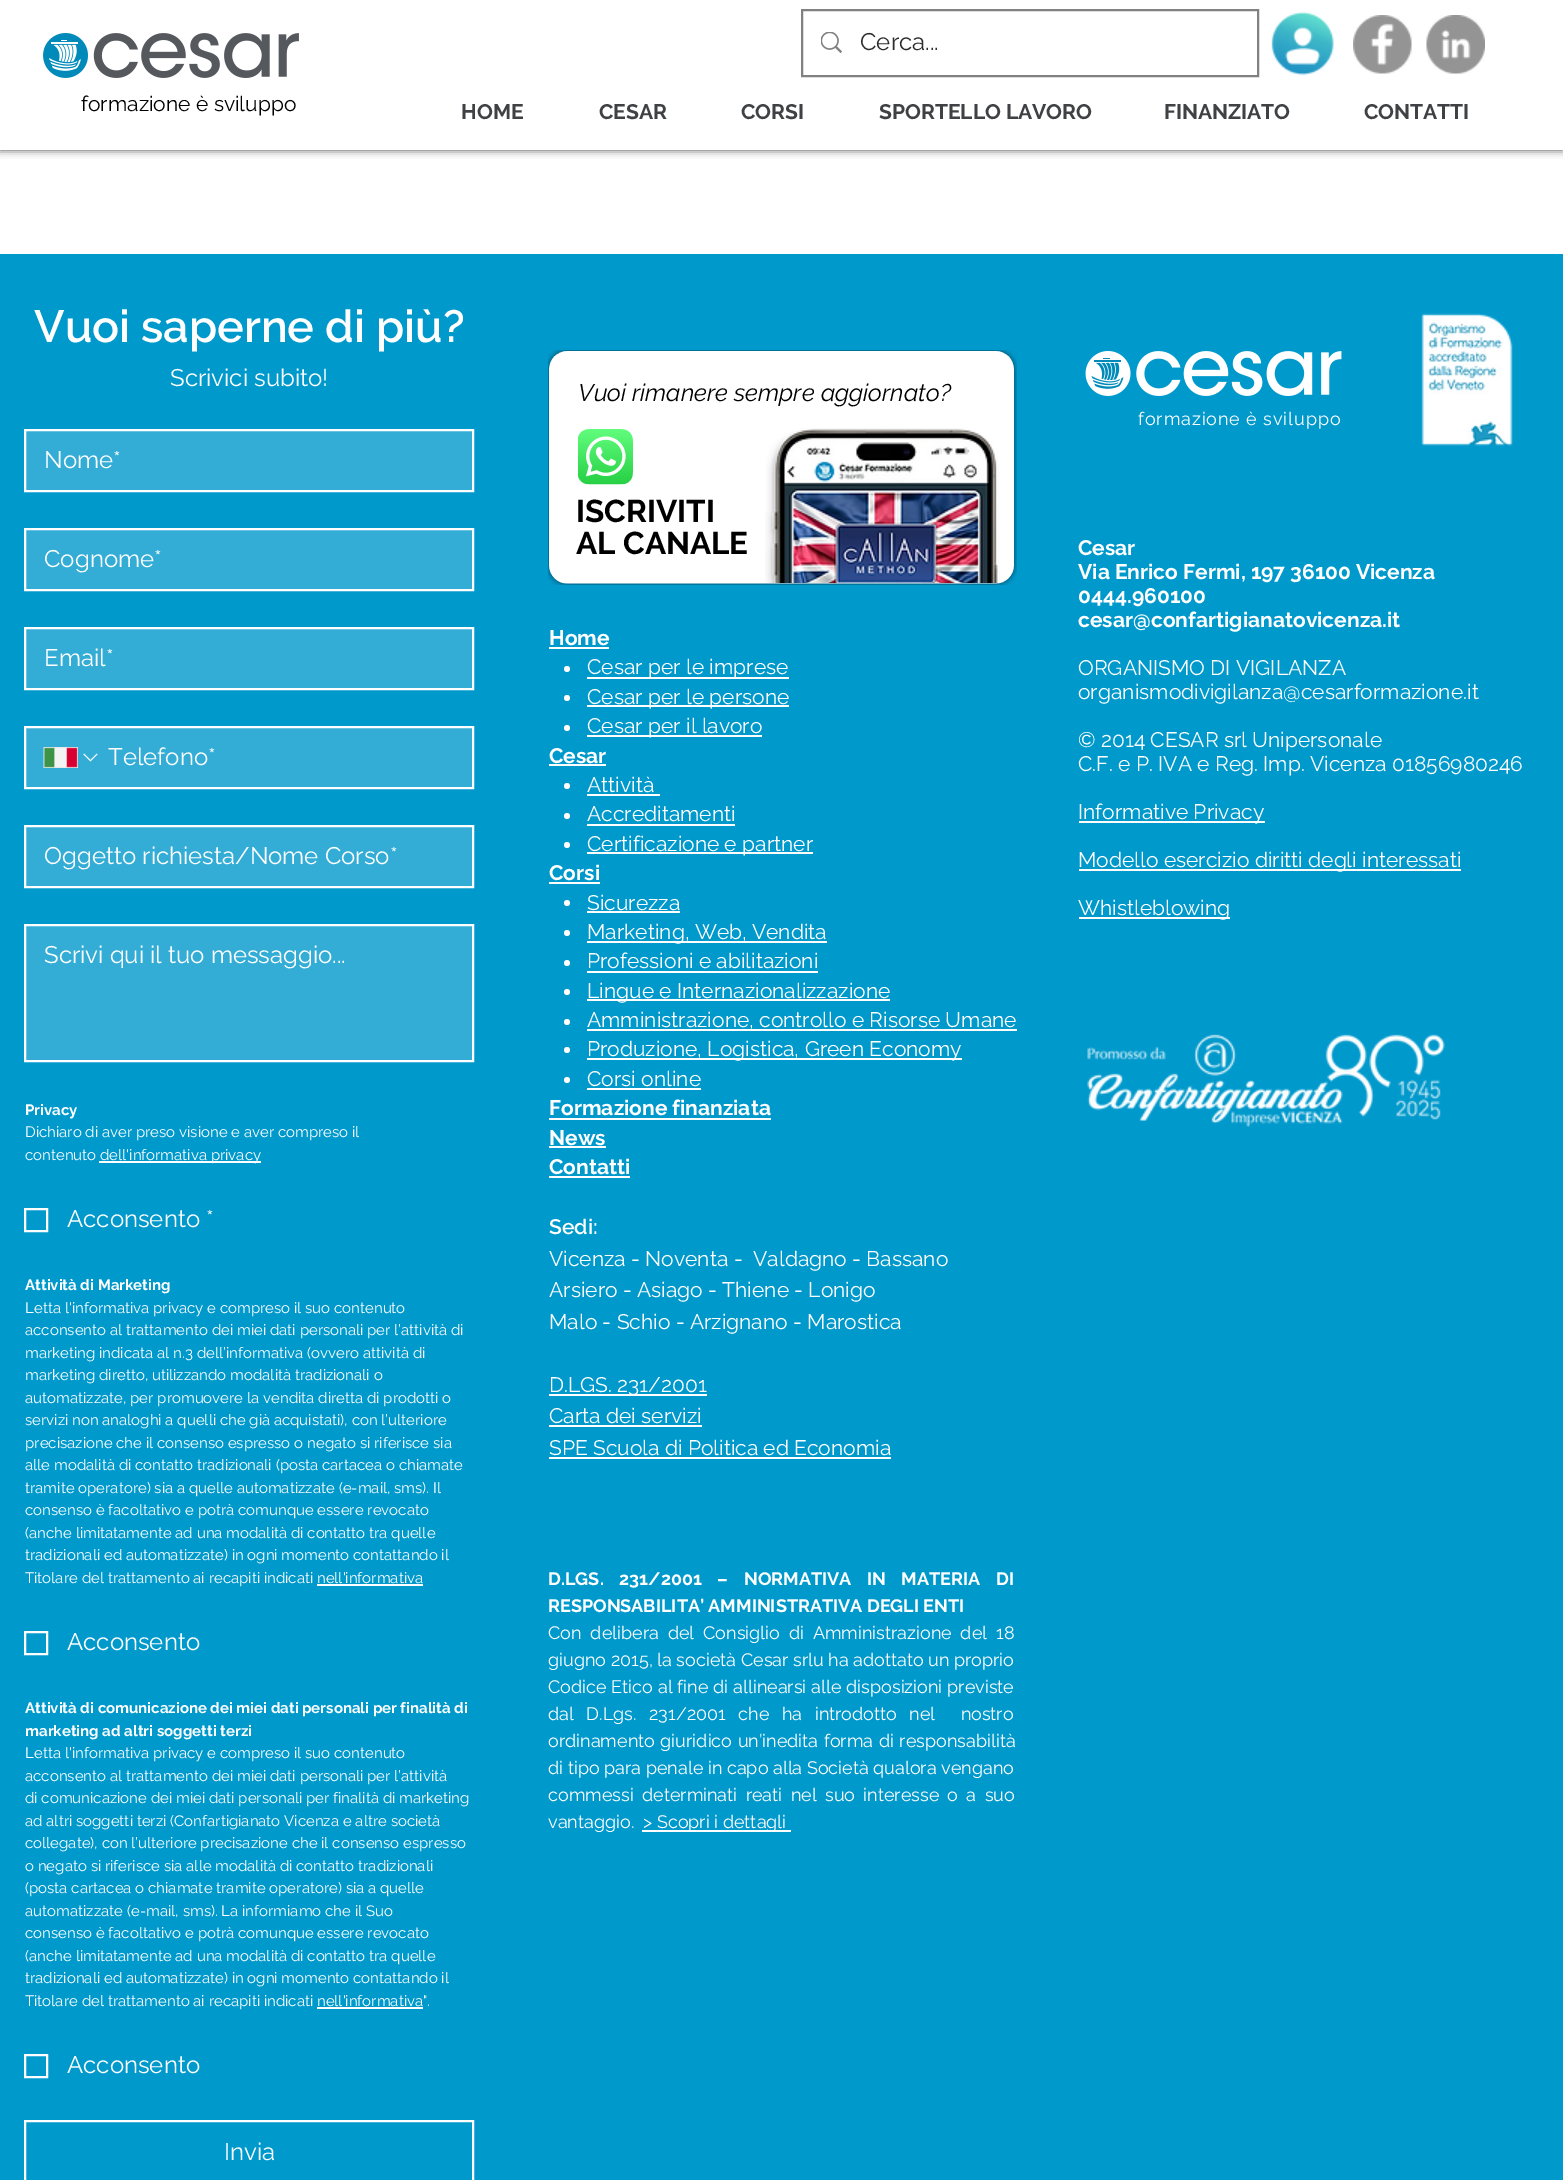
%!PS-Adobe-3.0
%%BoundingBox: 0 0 1563 2180
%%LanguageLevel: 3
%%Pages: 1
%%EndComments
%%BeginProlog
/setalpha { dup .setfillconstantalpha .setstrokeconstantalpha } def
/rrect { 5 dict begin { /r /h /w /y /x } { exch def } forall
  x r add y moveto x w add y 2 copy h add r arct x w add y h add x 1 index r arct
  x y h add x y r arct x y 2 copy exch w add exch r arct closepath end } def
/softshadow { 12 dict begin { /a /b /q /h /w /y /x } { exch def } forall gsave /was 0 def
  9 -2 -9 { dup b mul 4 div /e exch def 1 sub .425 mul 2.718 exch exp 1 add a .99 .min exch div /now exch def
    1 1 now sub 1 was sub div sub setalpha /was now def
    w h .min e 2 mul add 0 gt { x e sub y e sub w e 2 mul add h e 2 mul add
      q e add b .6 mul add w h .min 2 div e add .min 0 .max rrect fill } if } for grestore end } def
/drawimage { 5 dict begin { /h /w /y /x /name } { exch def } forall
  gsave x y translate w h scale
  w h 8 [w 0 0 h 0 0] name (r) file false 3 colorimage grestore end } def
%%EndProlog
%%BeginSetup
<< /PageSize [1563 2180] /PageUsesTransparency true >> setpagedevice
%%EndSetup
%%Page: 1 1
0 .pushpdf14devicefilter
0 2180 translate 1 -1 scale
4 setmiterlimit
1 setgray
0 0 1563 2180 rectfill
0 setgray
0 0 1563 150 0 4 0.7 softshadow
1 setgray
0 0 1563 150 rectfill
(images/1.raw) 43 33 256 45 drawimage
0.506 0.506 0.51 setrgbcolor
2 setlinewidth
802 10 456 66 rectstroke
(images/2.raw) 821 32 21 21 drawimage
(images/3.raw) 1271 11 63 65 drawimage
(images/4.raw) 1353 15 59 59 drawimage
(images/5.raw) 1426 15 59 59 drawimage
0 0.6 0.8 setrgbcolor
0 254 1563 1926 rectfill
0.2 0.678 0.839 setrgbcolor
newpath 25 430 moveto 473 430 lineto 473 491 lineto 25 491 lineto closepath gsave fill grestore
1 setgray
stroke
0.2 0.678 0.839 setrgbcolor
newpath 25 529 moveto 473 529 lineto 473 590 lineto 25 590 lineto closepath gsave fill grestore
1 setgray
stroke
0.2 0.678 0.839 setrgbcolor
newpath 25 628 moveto 473 628 lineto 473 689 lineto 25 689 lineto closepath gsave fill grestore
1 setgray
stroke
0.2 0.678 0.839 setrgbcolor
newpath 25 727 moveto 473 727 lineto 473 788 lineto 25 788 lineto closepath gsave fill grestore
1 setgray
stroke
(images/6.raw) 43 747 35 21 drawimage
(images/7.raw) 83 753 15 9 drawimage
0.2 0.678 0.839 setrgbcolor
newpath 25 826 moveto 473 826 lineto 473 887 lineto 25 887 lineto closepath gsave fill grestore
1 setgray
stroke
0.2 0.678 0.839 setrgbcolor
newpath 25 925 moveto 473 925 lineto 473 1061 lineto 25 1061 lineto closepath gsave fill grestore
1 setgray
stroke
99 1161 162 2 rectfill
25 1209 22 22 rectstroke
317 1584 106 2 rectfill
25 1632 22 22 rectstroke
317 2007 106 2 rectfill
25 2055 22 22 rectstroke
25 2121 448 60 rectstroke
(images/8.raw) 548 350 469 235 drawimage
(images/9.raw) 578 429 55 56 drawimage
(images/10.raw) 765 428 235 156 drawimage
549 647 60 2 rectfill
newpath 567 669 3 0 360 arc closepath fill
587 677 202 2 rectfill
newpath 567 698 3 0 360 arc closepath fill
587 705 202 2 rectfill
newpath 567 728 3 0 360 arc closepath fill
587 735 175 2 rectfill
549 764 57 2 rectfill
newpath 567 786 3 0 360 arc closepath fill
587 794 73 2 rectfill
newpath 567 816 3 0 360 arc closepath fill
587 824 148 2 rectfill
newpath 567 845 3 0 360 arc closepath fill
587 852 226 2 rectfill
549 882 51 2 rectfill
newpath 567 903 3 0 360 arc closepath fill
587 911 93 2 rectfill
newpath 567 933 3 0 360 arc closepath fill
587 941 240 2 rectfill
newpath 567 963 3 0 360 arc closepath fill
587 971 231 2 rectfill
newpath 567 992 3 0 360 arc closepath fill
587 999 303 2 rectfill
newpath 567 1022 3 0 360 arc closepath fill
587 1029 430 2 rectfill
newpath 567 1050 3 0 360 arc closepath fill
587 1058 375 2 rectfill
newpath 567 1080 3 0 360 arc closepath fill
587 1088 114 2 rectfill
549 1118 222 2 rectfill
549 1146 57 2 rectfill
549 1176 81 2 rectfill
549 1394 158 2 rectfill
549 1425 153 2 rectfill
549 1457 342 2 rectfill
642 1830 149 2 rectfill
(images/11.raw) 1085 351 257 45 drawimage
(images/12.raw) 1421 313 92 133 drawimage
1079 821 186 2 rectfill
1079 869 382 2 rectfill
1079 917 151 2 rectfill
(images/13.raw) 1087 1034 358 93 drawimage
/Raleway-Regular [21 0 0 -21 0 0] selectfont
0 setgray
81 111 moveto (formazione è sviluppo) show
/Raleway-Regular [24 0 0 -24 0 0] selectfont
0.176 0.176 0.184 setrgbcolor
860 50 moveto (Cerca...) show
/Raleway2-Bold [21 0 0 -21 0 0] selectfont
0.251 0.255 0.267 setrgbcolor
461 119 moveto (HOME) show
599 119 moveto (CESAR) show
741 119 moveto (CORSI) show
879 119 moveto (SPORTELLO LAVORO) show
1164 119 moveto (FINANZIATO) show
1364 119 moveto (CONTATTI) show
/Raleway-SemiBold [45 0 0 -45 0 0] selectfont
1 setgray
34 342 moveto (Vuoi saperne di più?) show
/Raleway-Regular [24 0 0 -24 0 0] selectfont
170 386 moveto (Scrivici subito!) show
44 468 moveto (Nome*) show
44 567 moveto (Cognome*) show
44 666 moveto (Email*) show
108 765 moveto (Telefono*) show
44 864 moveto (Oggetto richiesta/Nome Corso*) show
44 963 moveto (Scrivi qui il tuo messaggio...) show
/Raleway-Bold [15 0 0 -15 0 0] selectfont
25 1115 moveto (Privacy) show
/Raleway-Regular [15 0 0 -15 0 0] selectfont
25 1137 moveto (Dichiaro di aver preso visione e aver compreso il) show
25 1160 moveto (contenuto) show
100 1160 moveto (dell'informativa privacy) show
/Raleway-Regular [24 0 0 -24 0 0] selectfont
67 1227 moveto (Acconsento *) show
/Raleway-Bold [15 0 0 -15 0 0] selectfont
25 1290 moveto (Attività di Marketing) show
/Raleway-Regular [15 0 0 -15 0 0] selectfont
25 1313 moveto (Letta l'informativa privacy e compreso il suo contenuto) show
25 1335 moveto (acconsento al trattamento dei miei dati personali per l’attività di) show
25 1358 moveto (marketing indicata al n.3 dell’informativa \(ovvero attività di) show
25 1380 moveto (marketing diretto, utilizzando modalità tradizionali o) show
25 1403 moveto (automatizzate, per promuovere la vendita diretta di prodotti o) show
25 1425 moveto (servizi non analoghi a quelli che già acquistati\), con l’ulteriore) show
25 1448 moveto (precisazione che il consenso espresso o negato si riferisce sia) show
25 1470 moveto (alle modalità di contatto tradizionali \(posta cartacea o chiamate) show
25 1493 moveto (tramite operatore\) sia a quelle automatizzate \(e-mail, sms\). Il) show
25 1515 moveto (consenso è facoltativo e potrà comunque essere revocato) show
25 1538 moveto (\(anche limitatamente ad una modalità di contatto tra quelle) show
25 1560 moveto (tradizionali ed automatizzate\) in ogni momento contattando il) show
25 1583 moveto (Titolare del trattamento ai recapiti indicati nell'informativa) show
/Raleway-Regular [24 0 0 -24 0 0] selectfont
67 1650 moveto (Acconsento) show
/Raleway-Bold [15 0 0 -15 0 0] selectfont
25 1713 moveto (Attività di comunicazione dei miei dati personali per finalità di) show
25 1736 moveto (marketing ad altri soggetti terzi) show
/Raleway-Regular [15 0 0 -15 0 0] selectfont
25 1758 moveto (Letta l'informativa privacy e compreso il suo contenuto) show
25 1781 moveto (acconsento al trattamento dei miei dati personali per l’attività) show
25 1803 moveto (di comunicazione dei miei dati personali per finalità di marketing) show
25 1826 moveto (ad altri soggetti terzi \(Confartigianato Vicenza e altre società) show
25 1848 moveto (collegate\), con l’ulteriore precisazione che il consenso espresso) show
25 1871 moveto (o negato si riferisce sia alle modalità di contatto tradizionali) show
25 1893 moveto (\(posta cartacea o chiamate tramite operatore\) sia a quelle) show
25 1916 moveto (automatizzate \(e-mail, sms\). La informiamo che il Suo) show
25 1938 moveto (consenso è facoltativo e potrà comunque essere revocato) show
25 1961 moveto (\(anche limitatamente ad una modalità di contatto tra quelle) show
25 1983 moveto (tradizionali ed automatizzate\) in ogni momento contattando il) show
25 2006 moveto (Titolare del trattamento ai recapiti indicati nell'informativa".) show
/Raleway-Regular [24 0 0 -24 0 0] selectfont
67 2073 moveto (Acconsento) show
224 2160 moveto (Invia) show
/Raleway-Italic [24 0 0 -24 0 0] selectfont
0 setgray
578 401 moveto (Vuoi rimanere sempre aggiornato?) show
/Raleway2-Bold [31.5 0 0 -31.5 0 0] selectfont
576 522 moveto (ISCRIVITI) show
576 554 moveto (AL CANALE) show
/Raleway-Bold [21 0 0 -21 0 0] selectfont
1 setgray
549 645 moveto (Home) show
/Raleway-Regular [21 0 0 -21 0 0] selectfont
587 674 moveto (Cesar per le imprese) show
587 704 moveto (Cesar per le persone) show
587 733 moveto (Cesar per il lavoro) show
/Raleway-Bold [21 0 0 -21 0 0] selectfont
549 763 moveto (Cesar) show
/Raleway-Regular [21 0 0 -21 0 0] selectfont
587 792 moveto (Attività) show
587 821 moveto (Accreditamenti) show
587 851 moveto (Certificazione e partner) show
/Raleway-Bold [21 0 0 -21 0 0] selectfont
549 880 moveto (Corsi) show
/Raleway-Regular [21 0 0 -21 0 0] selectfont
587 910 moveto (Sicurezza) show
587 939 moveto (Marketing, Web, Vendita) show
587 968 moveto (Professioni e abilitazioni) show
587 998 moveto (Lingue e Internazionalizzazione) show
587 1027 moveto (Amministrazione, controllo e Risorse Umane) show
587 1056 moveto (Produzione, Logistica, Green Economy) show
587 1086 moveto (Corsi online) show
/Raleway-Bold [21 0 0 -21 0 0] selectfont
549 1115 moveto (Formazione finanziata) show
549 1145 moveto (News) show
549 1174 moveto (Contatti) show
/Raleway-SemiBold [21 0 0 -21 0 0] selectfont
549 1234 moveto (Sedi:) show
/Raleway-Regular [21 0 0 -21 0 0] selectfont
549 1266 moveto (Vicenza - Noventa -  Valdagno - Bassano) show
549 1297 moveto (Arsiero - Asiago - Thiene - Lonigo) show
549 1329 moveto (Malo - Schio - Arzignano - Marostica) show
549 1392 moveto (D.LGS. 231/2001) show
549 1423 moveto (Carta dei servizi) show
549 1455 moveto (SPE Scuola di Politica ed Economia) show
/Raleway2-Bold [18 0 0 -18 0 0] selectfont
548 1585 moveto 11.25 0 32 (D.LGS. 231/2001 – NORMATIVA IN MATERIA DI) widthshow
548 1612 moveto (RESPONSABILITA’ AMMINISTRATIVA DEGLI ENTI) show
/Raleway-Regular [18 0 0 -18 0 0] selectfont
548 1639 moveto 4.25 0 32 (Con delibera del Consiglio di Amministrazione del 18) widthshow
548 1666 moveto (giugno 2015, la società Cesar srlu ha adottato un proprio) show
548 1693 moveto 0.25 0 32 (Codice Etico al fine di allinearsi alle disposizioni previste) widthshow
548 1720 moveto 8 0 32 (dal D.Lgs. 231/2001 che ha introdotto nel  nostro) widthshow
548 1747 moveto 1 0 32 (ordinamento giuridico un’inedita forma di responsabilità) widthshow
548 1774 moveto (di tipo para penale in capo alla Società qualora vengano) show
548 1801 moveto 3.75 0 32 (commessi determinati reati nel suo interesse o a suo) widthshow
548 1828 moveto (vantaggio.) show
643 1828 moveto (> Scopri i dettagli) show
1138 425 moveto 0.9 0 (formazione è sviluppo) ashow
/Raleway-Bold [21 0 0 -21 0 0] selectfont
1078 555 moveto (Cesar) show
1078 579 moveto (Via Enrico Fermi, 197 36100 Vicenza) show
1078 603 moveto (0444.960100) show
1078 627 moveto (cesar@confartigianatovicenza.it) show
/Raleway-Regular [21 0 0 -21 0 0] selectfont
1078 675 moveto (ORGANISMO DI VIGILANZA) show
1078 699 moveto (organismodivigilanza@cesarformazione.it) show
1078 747 moveto (© 2014 CESAR srl Unipersonale) show
1078 771 moveto (C.F. e P. IVA e Reg. Imp. Vicenza 01856980246) show
1078 819 moveto (Informative Privacy) show
1078 867 moveto (Modello esercizio diritti degli interessati) show
1078 915 moveto (Whistleblowing) show
.poppdf14devicefilter showpage
%%EOF
